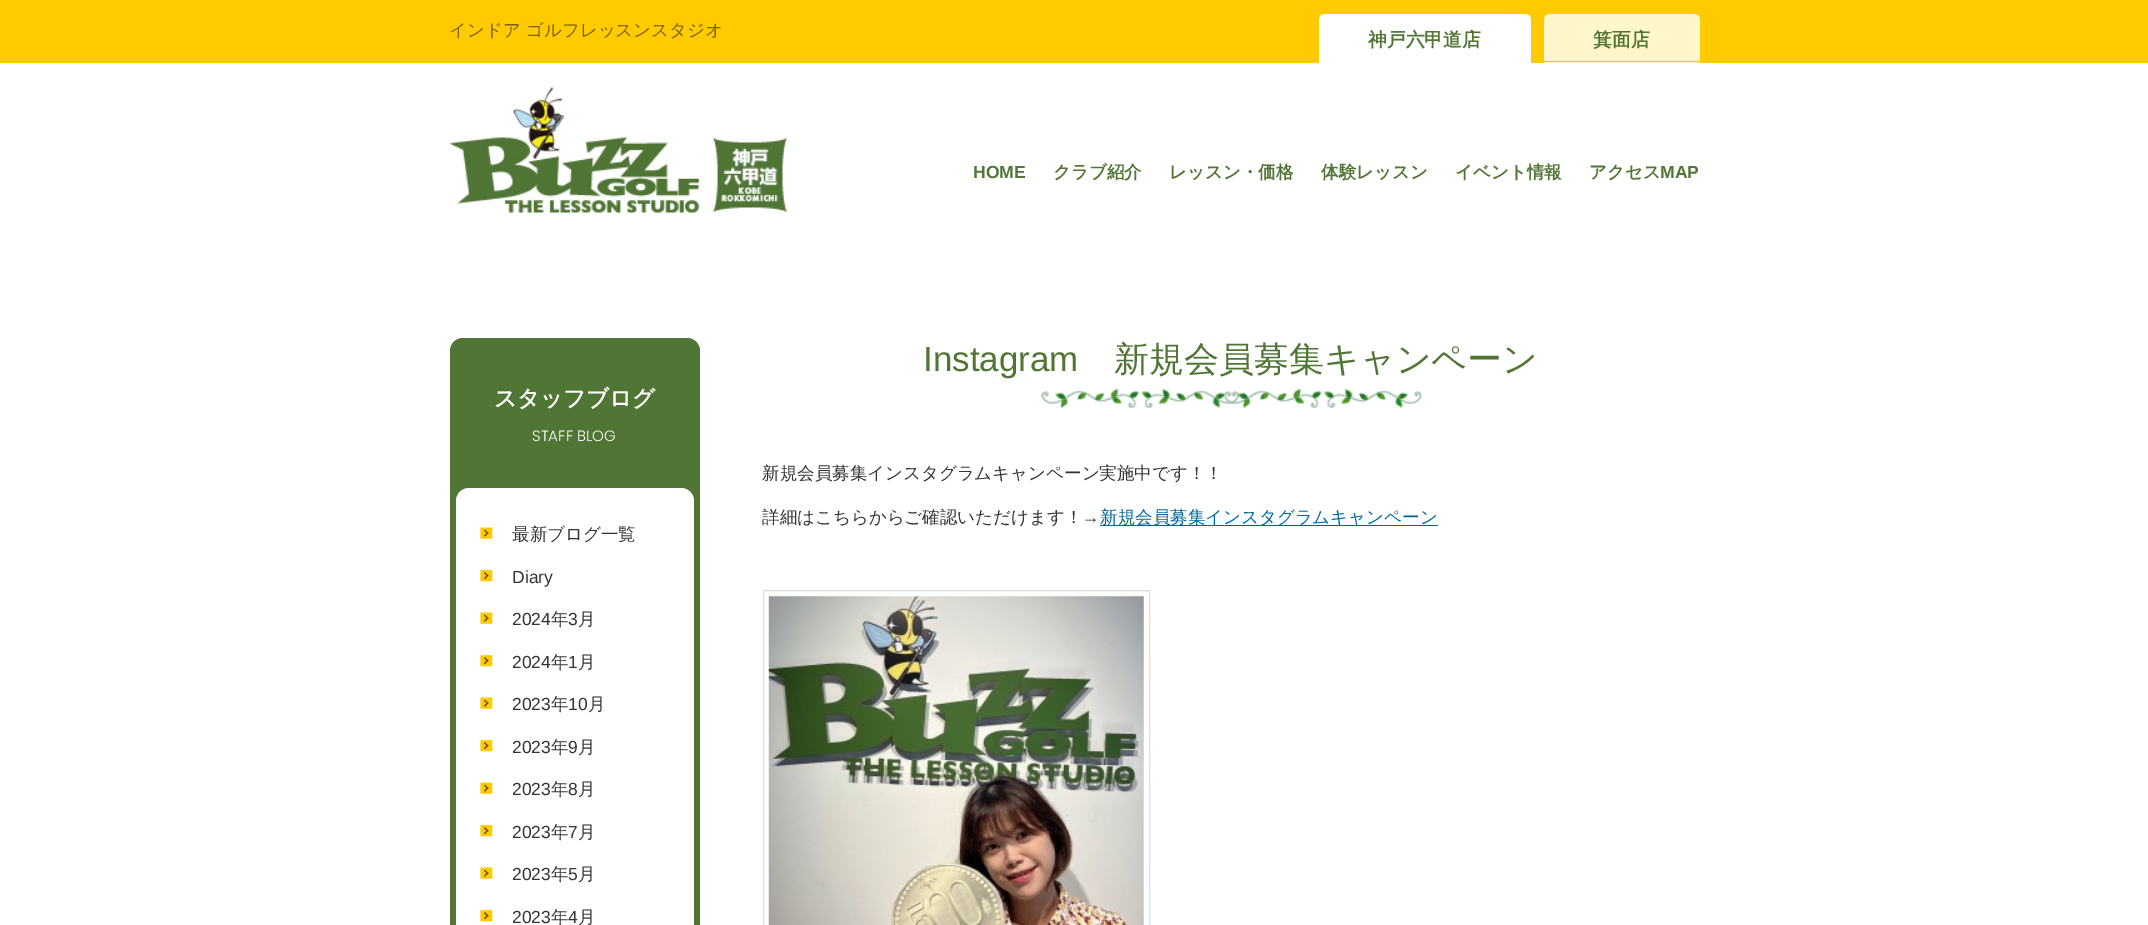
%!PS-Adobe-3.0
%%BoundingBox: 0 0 2148 925
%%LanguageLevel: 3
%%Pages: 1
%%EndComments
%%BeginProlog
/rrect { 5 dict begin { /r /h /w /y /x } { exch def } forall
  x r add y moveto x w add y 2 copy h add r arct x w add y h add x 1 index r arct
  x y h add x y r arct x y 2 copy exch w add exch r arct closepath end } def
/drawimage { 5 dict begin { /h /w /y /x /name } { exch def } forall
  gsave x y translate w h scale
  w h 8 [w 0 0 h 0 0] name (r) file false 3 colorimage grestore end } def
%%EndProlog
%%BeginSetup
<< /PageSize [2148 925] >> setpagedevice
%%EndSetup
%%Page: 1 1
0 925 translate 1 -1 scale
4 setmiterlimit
1 setgray
0 0 2148 925 rectfill
1 0.796 0 setrgbcolor
0 0 2148 63 rectfill
1 setgray
newpath 1325 14 moveto 1525 14 lineto 1528.5 14 1531 16.5 1531 20 curveto 1531 63 lineto 1319 63 lineto 1319 20 lineto 1319 16.5 1321.5 14 1325 14 curveto closepath fill
1 0.965 0.792 setrgbcolor
newpath 1550 14 moveto 1694 14 lineto 1697.5 14 1700 16.5 1700 20 curveto 1700 63 lineto 1544 63 lineto 1544 20 lineto 1544 16.5 1546.5 14 1550 14 curveto closepath fill
1 0.796 0 setrgbcolor
1544 61 156 1 rectfill
(images/1.raw) 450 87 338 126 drawimage
0.314 0.459 0.208 setrgbcolor
450 338 250 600 13 rrect fill
1 setgray
456 488 238 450 13 rrect fill
(images/2.raw) 480 527 13 12 drawimage
(images/3.raw) 480 569 13 13 drawimage
(images/2.raw) 480 612 13 12 drawimage
(images/3.raw) 480 654 13 13 drawimage
(images/2.raw) 480 697 13 12 drawimage
(images/3.raw) 480 739 13 13 drawimage
(images/4.raw) 480 782 13 12 drawimage
(images/3.raw) 480 824 13 13 drawimage
(images/2.raw) 480 867 13 12 drawimage
(images/3.raw) 480 909 13 13 drawimage
(images/5.raw) 1041 388 381 20 drawimage
0 0.4 0.6 setrgbcolor
1100 525 338 1 rectfill
0.867 setgray
763.5 590.5 386 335 rectstroke
(images/6.raw) 768 596 376 329 drawimage
/WenQuanYiZenHei-Medium [17.5 0 0 -17.5 0 0] selectfont
0.475 0.38 0 setrgbcolor
449 36 moveto (インドア ゴルフレッスンスタジオ) show
/WenQuanYiZenHei-Bold [18.75 0 0 -18.75 0 0] selectfont
0.314 0.459 0.208 setrgbcolor
1368 46 moveto (神戸六甲道店) show
1593 46 moveto (箕面店) show
/LiberationSans-Bold [17.5 0 0 -17.5 0 0] selectfont
973 178 moveto (HOME) show
/WenQuanYiZenHei-Bold [17.5 0 0 -17.5 0 0] selectfont
1053 178 moveto (クラブ紹介) show
1169 178 moveto (レッスン・価格) show
1321 178 moveto (体験レッスン) show
1455 178 moveto (イベント情報) show
1589 178 moveto (アクセス) show
/LiberationSans-Bold [17.5 0 0 -17.5 0 0] selectfont
1660 178 moveto (MAP) show
/WenQuanYiZenHei-Bold [22.5 0 0 -22.5 0 0] selectfont
1 setgray
494 406 moveto (スタッフブログ) show
/Poppins-Light [15 0 0 -15 0 0] selectfont
532 441 moveto (STAFF BLOG) show
/WenQuanYiZenHei-Medium [17.5 0 0 -17.5 0 0] selectfont
0.2 setgray
512 540 moveto (最新ブログ一覧) show
/LiberationSans-Regular [17.5 0 0 -17.5 0 0] selectfont
512 583 moveto (Diary) show
512 625 moveto (2024) show
/WenQuanYiZenHei-Medium [17.5 0 0 -17.5 0 0] selectfont
551 625 moveto (年) show
/LiberationSans-Regular [17.5 0 0 -17.5 0 0] selectfont
568 625 moveto (3) show
/WenQuanYiZenHei-Medium [17.5 0 0 -17.5 0 0] selectfont
578 625 moveto (月) show
/LiberationSans-Regular [17.5 0 0 -17.5 0 0] selectfont
512 668 moveto (2024) show
/WenQuanYiZenHei-Medium [17.5 0 0 -17.5 0 0] selectfont
551 668 moveto (年) show
/LiberationSans-Regular [17.5 0 0 -17.5 0 0] selectfont
568 668 moveto (1) show
/WenQuanYiZenHei-Medium [17.5 0 0 -17.5 0 0] selectfont
578 668 moveto (月) show
/LiberationSans-Regular [17.5 0 0 -17.5 0 0] selectfont
512 710 moveto (2023) show
/WenQuanYiZenHei-Medium [17.5 0 0 -17.5 0 0] selectfont
551 710 moveto (年) show
/LiberationSans-Regular [17.5 0 0 -17.5 0 0] selectfont
568 710 moveto (10) show
/WenQuanYiZenHei-Medium [17.5 0 0 -17.5 0 0] selectfont
588 710 moveto (月) show
/LiberationSans-Regular [17.5 0 0 -17.5 0 0] selectfont
512 753 moveto (2023) show
/WenQuanYiZenHei-Medium [17.5 0 0 -17.5 0 0] selectfont
551 753 moveto (年) show
/LiberationSans-Regular [17.5 0 0 -17.5 0 0] selectfont
568 753 moveto (9) show
/WenQuanYiZenHei-Medium [17.5 0 0 -17.5 0 0] selectfont
578 753 moveto (月) show
/LiberationSans-Regular [17.5 0 0 -17.5 0 0] selectfont
512 795 moveto (2023) show
/WenQuanYiZenHei-Medium [17.5 0 0 -17.5 0 0] selectfont
551 795 moveto (年) show
/LiberationSans-Regular [17.5 0 0 -17.5 0 0] selectfont
568 795 moveto (8) show
/WenQuanYiZenHei-Medium [17.5 0 0 -17.5 0 0] selectfont
578 795 moveto (月) show
/LiberationSans-Regular [17.5 0 0 -17.5 0 0] selectfont
512 838 moveto (2023) show
/WenQuanYiZenHei-Medium [17.5 0 0 -17.5 0 0] selectfont
551 838 moveto (年) show
/LiberationSans-Regular [17.5 0 0 -17.5 0 0] selectfont
568 838 moveto (7) show
/WenQuanYiZenHei-Medium [17.5 0 0 -17.5 0 0] selectfont
578 838 moveto (月) show
/LiberationSans-Regular [17.5 0 0 -17.5 0 0] selectfont
512 880 moveto (2023) show
/WenQuanYiZenHei-Medium [17.5 0 0 -17.5 0 0] selectfont
551 880 moveto (年) show
/LiberationSans-Regular [17.5 0 0 -17.5 0 0] selectfont
568 880 moveto (5) show
/WenQuanYiZenHei-Medium [17.5 0 0 -17.5 0 0] selectfont
578 880 moveto (月) show
/LiberationSans-Regular [17.5 0 0 -17.5 0 0] selectfont
512 923 moveto (2023) show
/WenQuanYiZenHei-Medium [17.5 0 0 -17.5 0 0] selectfont
551 923 moveto (年) show
/LiberationSans-Regular [17.5 0 0 -17.5 0 0] selectfont
568 923 moveto (4) show
/WenQuanYiZenHei-Medium [17.5 0 0 -17.5 0 0] selectfont
578 923 moveto (月) show
/LiberationSans-Regular [35 0 0 -35 0 0] selectfont
0.314 0.459 0.208 setrgbcolor
923 371 moveto (Instagram) show
/WenQuanYiZenHei-Medium [35 0 0 -35 0 0] selectfont
1114 371 moveto (新規会員募集キャンペーン) show
/WenQuanYiZenHei-Medium [17.5 0 0 -17.5 0 0] selectfont
0.2 setgray
762 479 moveto (新規会員募集インスタグラムキャンペーン実施中です！！) show
762 523 moveto (詳細はこちらからご確認いただけます！) show
/LiberationSans-Regular [17.5 0 0 -17.5 0 0] selectfont
1082 523 moveto (→) show
/WenQuanYiZenHei-Medium [17.5 0 0 -17.5 0 0] selectfont
0 0.4 0.6 setrgbcolor
1100 523 moveto (新規会員募集インスタグラムキャンペーン) show
showpage
%%EOF
